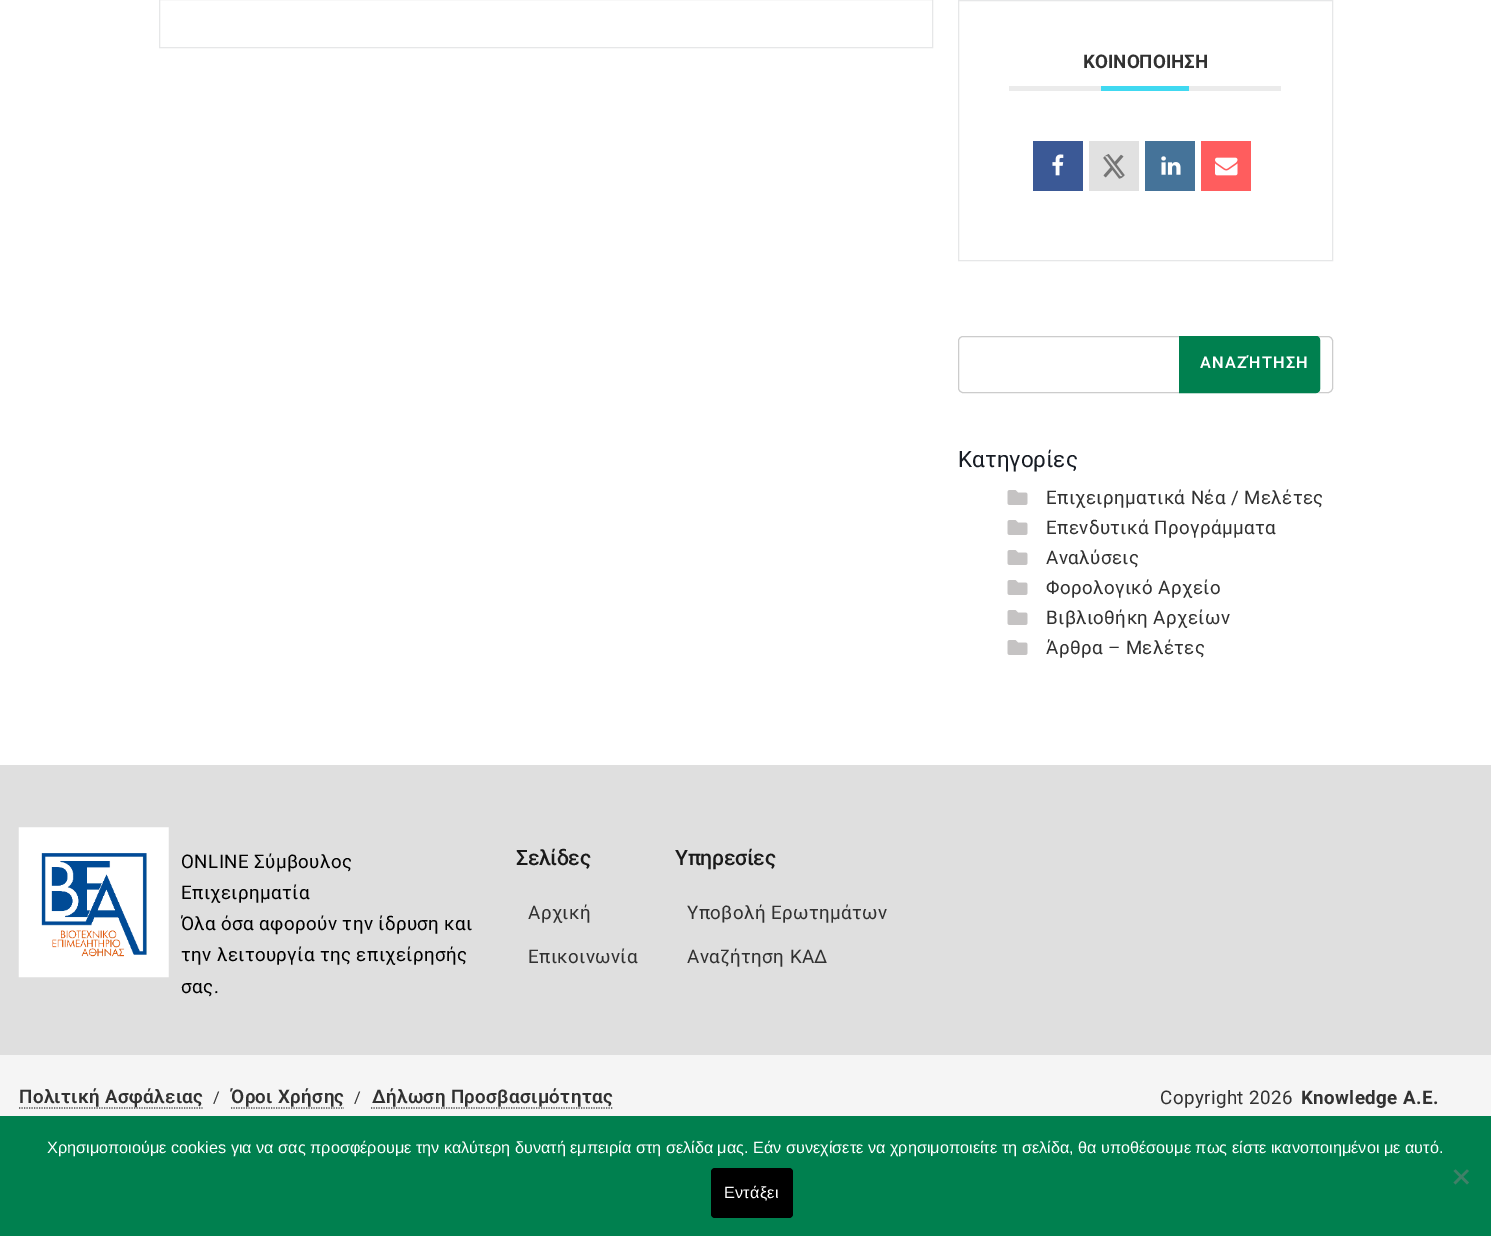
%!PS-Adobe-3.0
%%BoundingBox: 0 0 1491 1236
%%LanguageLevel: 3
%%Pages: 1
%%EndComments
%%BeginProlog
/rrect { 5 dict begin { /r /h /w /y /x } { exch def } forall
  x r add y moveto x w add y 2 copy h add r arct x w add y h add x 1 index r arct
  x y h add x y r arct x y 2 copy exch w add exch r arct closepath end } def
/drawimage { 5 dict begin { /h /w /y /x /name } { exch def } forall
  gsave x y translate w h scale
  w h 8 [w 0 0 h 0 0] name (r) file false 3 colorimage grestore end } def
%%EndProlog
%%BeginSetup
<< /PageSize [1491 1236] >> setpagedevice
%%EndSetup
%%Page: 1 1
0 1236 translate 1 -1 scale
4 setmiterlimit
1 setgray
0 0 1491 1236 rectfill
0.902 0.906 0.91 setrgbcolor
159.5 -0.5 773 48 rectstroke
958.5 0.5 374 260 rectstroke
0.922 setgray
1009 86 272 5 rectfill
0.251 0.851 0.945 setrgbcolor
1101 86 88 5 rectfill
0.231 0.349 0.588 setrgbcolor
1033 141 50 50 rectfill
(images/1.raw) 1052 154 12 22 drawimage
0.882 setgray
1089 141 50 50 rectfill
(images/2.raw) 1103 154 22 25 drawimage
0.271 0.451 0.6 setrgbcolor
1145 141 50 50 rectfill
(images/3.raw) 1161 156 20 19 drawimage
1 0.365 0.369 setrgbcolor
1201 141 50 50 rectfill
(images/4.raw) 1215 157 23 19 drawimage
0.8 setgray
958.5 336.5 374 56 4.5 rrect stroke
0.988 setgray
newpath 1179 392 moveto 1179 394 lineto 1316 394 lineto 1318 394 1320 392 1320 390 curveto 1320 389 lineto 1320 391 1318 392 1316 392 curveto closepath fill
0 0.502 0.31 setrgbcolor
newpath 1179.5 336.5 moveto 1316 336.5 lineto 1318 336.5 1319.5 338 1319.5 340 curveto 1319.5 389 lineto 1319.5 391 1318 392.5 1316 392.5 curveto 1179.5 392.5 lineto closepath gsave fill grestore
stroke
(images/5.raw) 1007 490 21 15 drawimage
(images/5.raw) 1007 520 21 15 drawimage
(images/5.raw) 1007 550 21 15 drawimage
(images/5.raw) 1007 580 21 15 drawimage
(images/5.raw) 1007 610 21 15 drawimage
(images/5.raw) 1007 640 21 15 drawimage
0.875 setgray
0 765 1491 290 rectfill
(images/6.raw) 18 827 151 151 drawimage
0.961 setgray
0 1055 1491 61 rectfill
0.267 setgray
1.2 setlinewidth
[1.25 1.25] 0 setdash
newpath 19 1108 moveto 202.5 1108 lineto stroke
newpath 231 1108 moveto 344 1108 lineto stroke
newpath 371 1108 moveto 612.5 1108 lineto stroke
0 0.502 0.31 setrgbcolor
0 1116 1491 120 rectfill
0.251 0.502 0.408 setrgbcolor
newpath 1467 1169.5 moveto 1469 1171 lineto 1455.5 1184.5 lineto 1453.5 1182.5 lineto closepath fill
newpath 1453.5 1171 moveto 1455.5 1169.5 lineto 1469 1182.5 lineto 1467 1184.5 lineto closepath fill
0 setgray
711 1168 82 50 4 rrect fill
/Roboto-Bold [18.75 0 0 -18.75 0 0] selectfont
0.192 setgray
1083 68 moveto (ΚΟΙΝΟΠΟΙΗΣΗ) show
/Roboto-SemiBold [16.25 0 0 -16.25 0 0] selectfont
1 setgray
1200 368 moveto 1.25 0 (ΑΝΑΖΉΤΗΣΗ) ashow
/Roboto-Regular [22.5 0 0 -22.5 0 0] selectfont
0.09 0.11 0.141 setrgbcolor
958 467 moveto (Κατηγορίες) show
/Roboto-Regular [18.75 0 0 -18.75 0 0] selectfont
0.192 setgray
1046 504 moveto 0.4 0 (Επιχειρηματικά Νέα / Μελέτες) ashow
1046 534 moveto 0.4 0 (Επενδυτικά Προγράμματα) ashow
1046 564 moveto 0.4 0 (Αναλύσεις) ashow
1046 594 moveto 0.4 0 (Φορολογικό Αρχείο) ashow
1046 624 moveto 0.4 0 (Βιβλιοθήκη Αρχείων) ashow
1046 654 moveto 0.4 0 (Άρθρα – Μελέτες) ashow
0 setgray
181 868 moveto 0.4 0 (ONLINE Σύμβουλος) ashow
181 899 moveto 0.4 0 (Επιχειρηματία) ashow
181 930 moveto 0.4 0 (Όλα όσα αφορούν την ίδρυση και) ashow
181 961 moveto 0.4 0 (την λειτουργία της επιχείρησής) ashow
181 993 moveto 0.4 0 (σας.) ashow
/Roboto-Medium [21.25 0 0 -21.25 0 0] selectfont
0.102 setgray
516 865 moveto -0.4 0 (Σελίδες) ashow
/Roboto-Regular [18.75 0 0 -18.75 0 0] selectfont
0.192 setgray
528 919 moveto 0.4 0 (Αρχική) ashow
528 963 moveto 0.4 0 (Επικοινωνία) ashow
/Roboto-Medium [21.25 0 0 -21.25 0 0] selectfont
0.102 setgray
675 865 moveto -0.4 0 (Υπηρεσίες) ashow
/Roboto-Regular [18.75 0 0 -18.75 0 0] selectfont
0.192 setgray
687 919 moveto 0.4 0 (Υποβολή Ερωτημάτων) ashow
687 963 moveto 0.4 0 (Αναζήτηση ΚΑΔ) ashow
/Roboto-SemiBold [18.75 0 0 -18.75 0 0] selectfont
19 1103 moveto 0.4 0 (Πολιτική Ασφάλειας) ashow
/Roboto-Regular [16.25 0 0 -16.25 0 0] selectfont
213 1103 moveto 0.4 0 (/) ashow
/Roboto-SemiBold [18.75 0 0 -18.75 0 0] selectfont
231 1103 moveto 0.4 0 (Όροι Χρήσης) ashow
/Roboto-Regular [16.25 0 0 -16.25 0 0] selectfont
354 1103 moveto 0.4 0 (/) ashow
/Roboto-SemiBold [18.75 0 0 -18.75 0 0] selectfont
372 1103 moveto 0.4 0 (Δήλωση Προσβασιμότητας) ashow
/Roboto-Regular [18.75 0 0 -18.75 0 0] selectfont
1160 1104 moveto 0.4 0 (Copyright 2026) ashow
/Roboto-Bold [18.75 0 0 -18.75 0 0] selectfont
1301 1104 moveto 0.4 0 (Knowledge A.E.) ashow
/LiberationSans-Regular [16.25 0 0 -16.25 0 0] selectfont
1 setgray
47 1153 moveto (Χρησιμοποιούμε cookies για να σας προσφέρουμε την καλύτερη δυνατή εμπειρία στη σελίδα μας. Εάν συνεχίσετε να χρησιμοποιείτε τη σελίδα, θα υποθέσουμε πως είστε ικανοποιημένοι με αυτό.) show
724 1198 moveto 0.25 0 (Εντάξει) ashow
showpage
%%EOF
